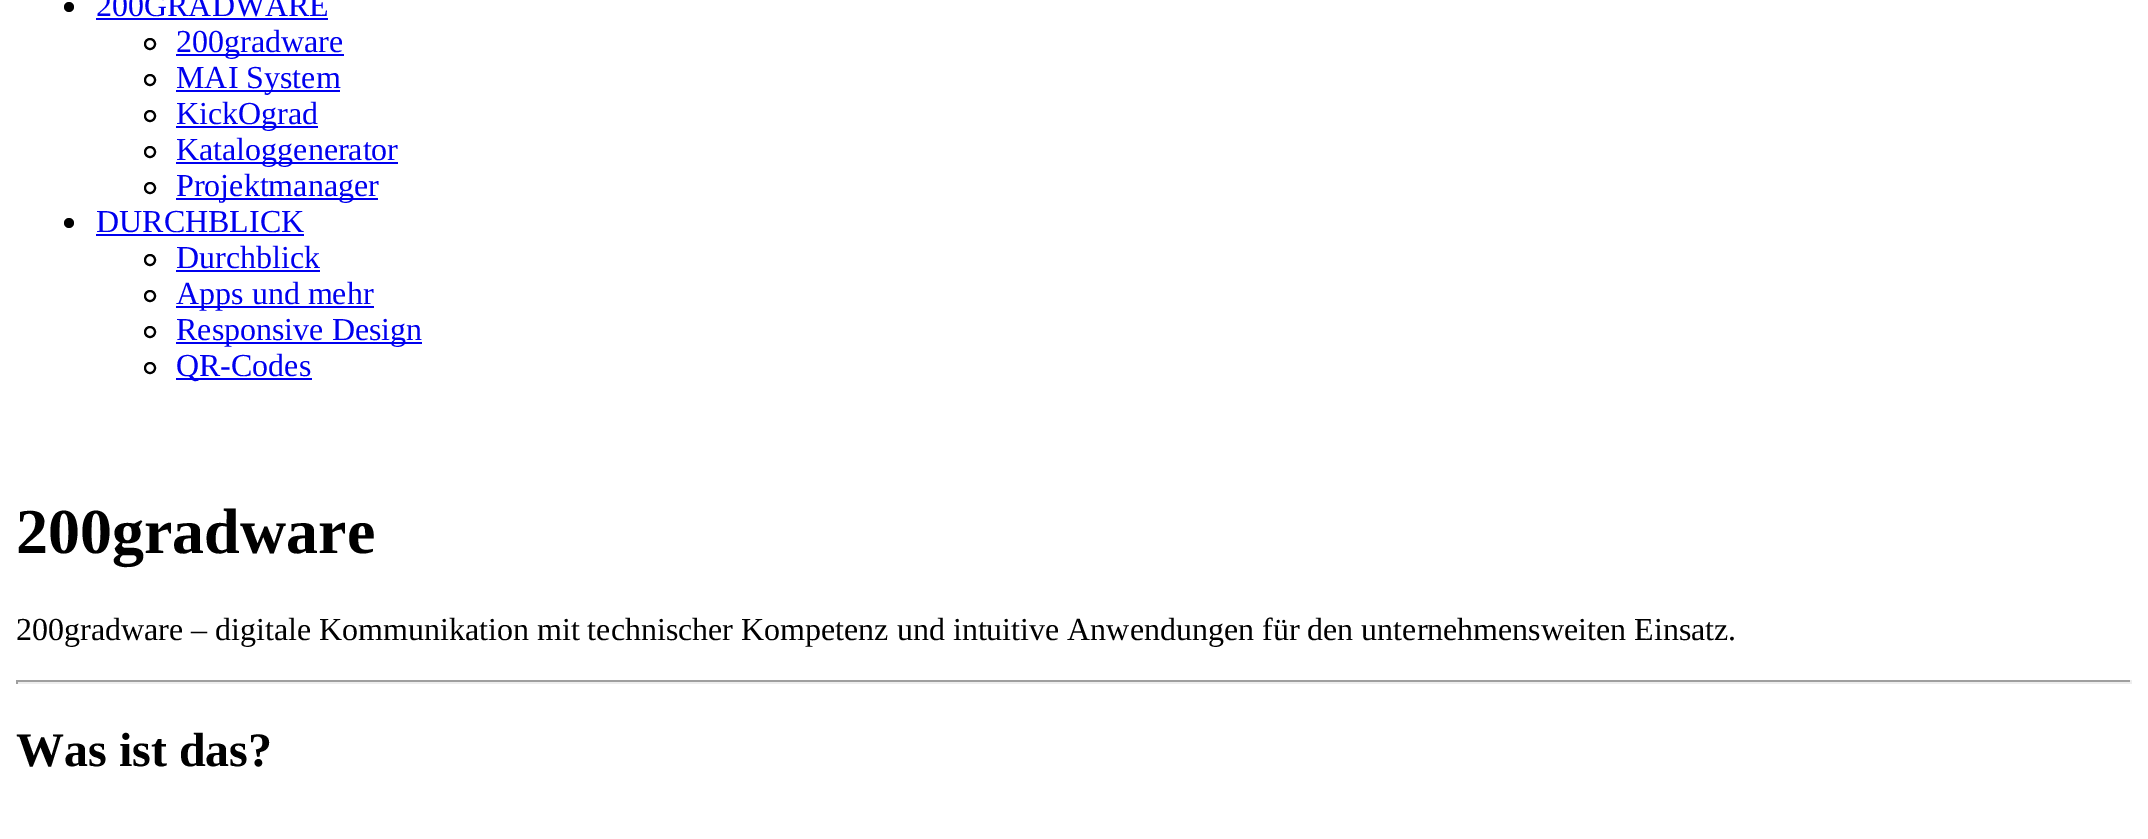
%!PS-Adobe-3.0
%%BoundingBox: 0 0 2148 839
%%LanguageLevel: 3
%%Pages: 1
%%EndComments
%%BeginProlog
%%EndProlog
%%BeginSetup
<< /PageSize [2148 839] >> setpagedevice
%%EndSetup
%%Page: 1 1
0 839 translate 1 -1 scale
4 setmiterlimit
1 setgray
0 0 2148 839 rectfill
0 setgray
newpath 69 7 5 0 360 arc closepath fill
0 0 0.933 setrgbcolor
96 18 232 2 rectfill
0 setgray
2 setlinewidth
newpath 150 44 5 0 360 arc closepath stroke
0 0 0.933 setrgbcolor
176 54 168 2 rectfill
0 setgray
newpath 150 80 5 0 360 arc closepath stroke
0 0 0.933 setrgbcolor
176 90 164 2 rectfill
0 setgray
newpath 150 116 5 0 360 arc closepath stroke
0 0 0.933 setrgbcolor
176 126 142 2 rectfill
0 setgray
newpath 150 152 5 0 360 arc closepath stroke
0 0 0.933 setrgbcolor
176 162 222 2 rectfill
0 setgray
newpath 150 188 5 0 360 arc closepath stroke
0 0 0.933 setrgbcolor
176 198 202 2 rectfill
0 setgray
newpath 69 223 5 0 360 arc closepath fill
0 0 0.933 setrgbcolor
96 234 208 2 rectfill
0 setgray
newpath 150 260 5 0 360 arc closepath stroke
0 0 0.933 setrgbcolor
176 270 144 2 rectfill
0 setgray
newpath 150 296 5 0 360 arc closepath stroke
0 0 0.933 setrgbcolor
176 306 198 2 rectfill
0 setgray
newpath 150 332 5 0 360 arc closepath stroke
0 0 0.933 setrgbcolor
176 342 246 2 rectfill
0 setgray
newpath 150 368 5 0 360 arc closepath stroke
0 0 0.933 setrgbcolor
176 378 136 2 rectfill
0.624 setgray
16 680 2116 2 rectfill
0.933 setgray
2130 680 2 4 rectfill
16 682 2116 2 rectfill
0.624 setgray
16 680 2 4 rectfill
/LiberationSerif-Regular [32 0 0 -32 0 0] selectfont
0 0 0.933 setrgbcolor
96 16 moveto (200GRADWARE) show
176 52 moveto (200gradware) show
176 88 moveto (MAI System) show
176 124 moveto (KickOgrad) show
176 160 moveto (Kataloggenerator) show
176 196 moveto (Projektmanager) show
96 232 moveto (DURCHBLICK) show
176 268 moveto (Durchblick) show
176 304 moveto (Apps und mehr) show
176 340 moveto (Responsive Design) show
176 376 moveto (QR-Codes) show
/LiberationSerif-Bold [64 0 0 -64 0 0] selectfont
0 setgray
16 553 moveto (200gradware) show
/LiberationSerif-Regular [32 0 0 -32 0 0] selectfont
16 640 moveto (200gradware – digitale Kommunikation mit technischer Kompetenz und intuitive Anwendungen für den unternehmensweiten Einsatz.) show
/LiberationSerif-Bold [48 0 0 -48 0 0] selectfont
16 766 moveto (Was ist das?) show
showpage
%%EOF
